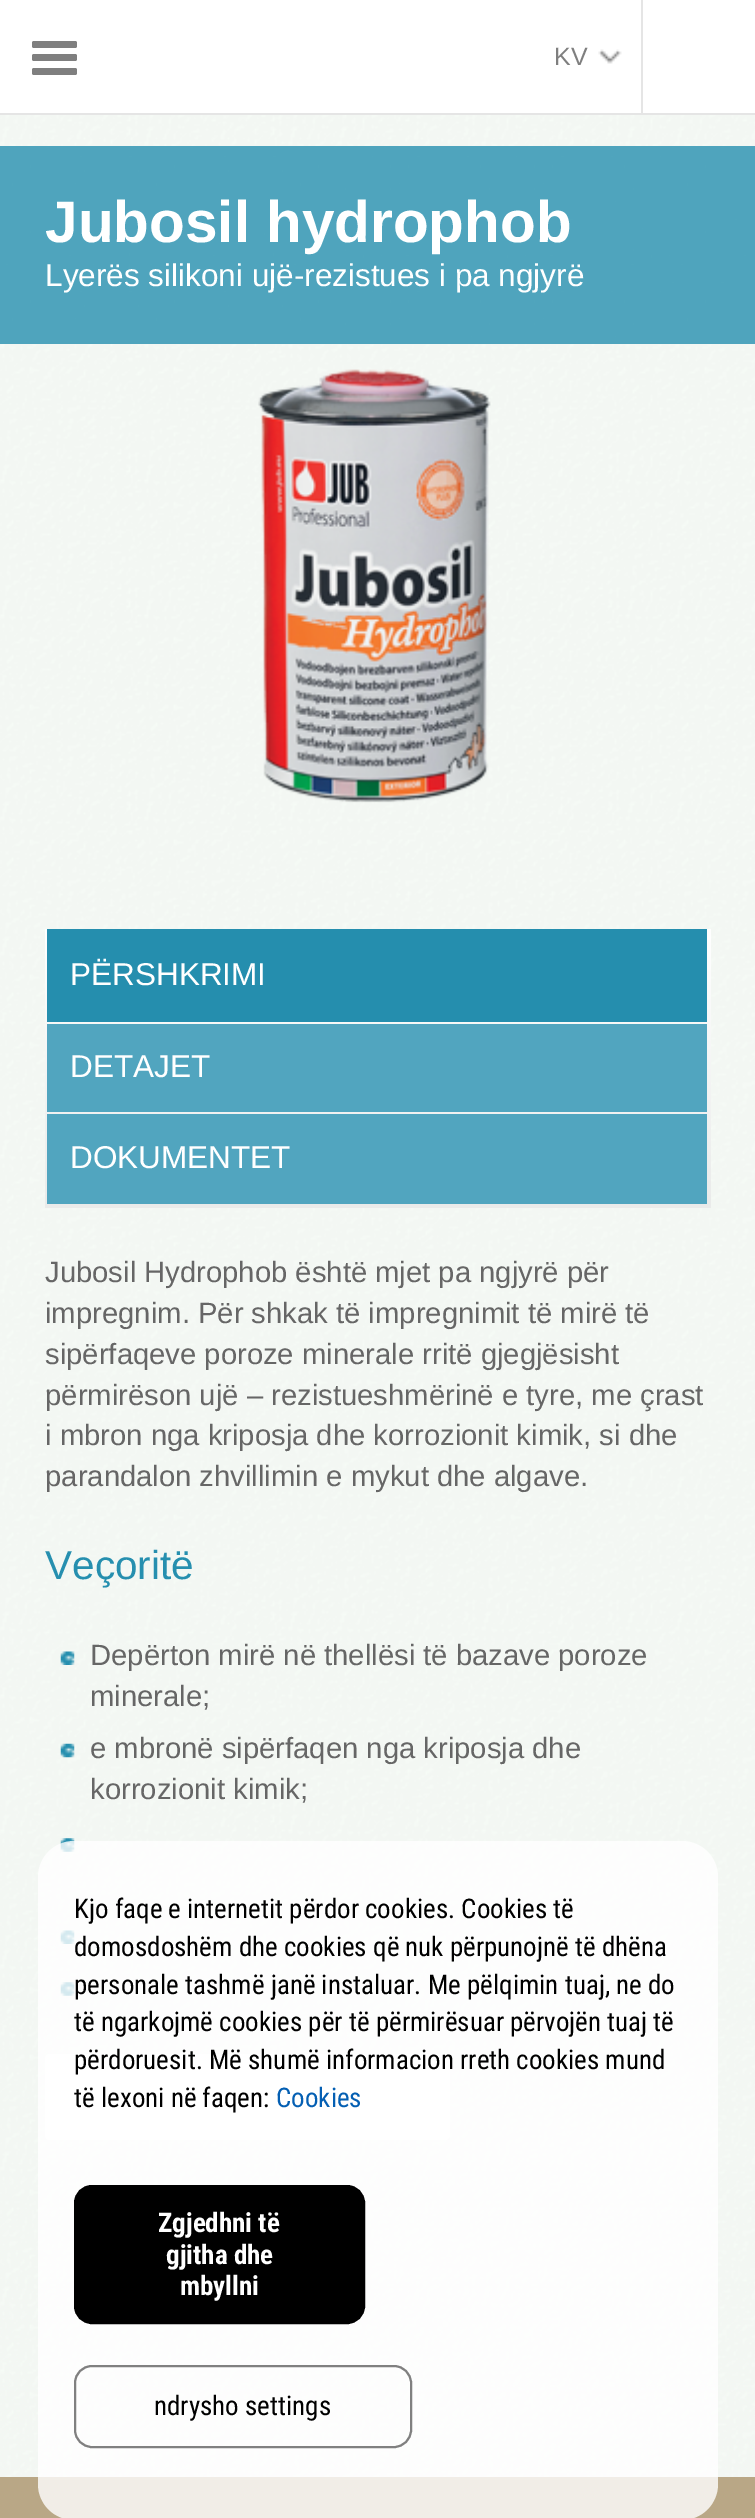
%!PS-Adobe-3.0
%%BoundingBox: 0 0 755 2518
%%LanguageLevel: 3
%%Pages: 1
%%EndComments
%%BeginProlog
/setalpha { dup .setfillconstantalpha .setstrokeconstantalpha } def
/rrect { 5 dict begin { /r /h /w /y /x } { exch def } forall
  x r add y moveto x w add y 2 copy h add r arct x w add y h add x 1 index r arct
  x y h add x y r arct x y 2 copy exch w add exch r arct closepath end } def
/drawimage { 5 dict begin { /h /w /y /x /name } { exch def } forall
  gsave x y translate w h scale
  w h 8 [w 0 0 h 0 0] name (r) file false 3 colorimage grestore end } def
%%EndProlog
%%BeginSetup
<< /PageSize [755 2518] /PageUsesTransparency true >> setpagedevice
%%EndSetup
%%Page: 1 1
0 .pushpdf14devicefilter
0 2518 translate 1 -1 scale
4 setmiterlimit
1 setgray
0 0 755 2518 rectfill
(images/1.raw) 0 115 755 2362 drawimage
0.898 setgray
0 113 293 2 rectfill
0.498 setgray
32 41 45 7 2 rrect fill
32 54 45 7 2 rrect fill
32 68 45 7 2 rrect fill
(images/2.raw) 598 49 24 15 drawimage
0.898 setgray
293 113 462 2 rectfill
641 0 2 115 rectfill
0.8 setalpha
0.149 0.561 0.686 setrgbcolor
0 146 755 198 rectfill
1 setalpha
(images/3.raw) 258 369 233 434 drawimage
gsave newpath 45 929 moveto 711 929 lineto 711 1208 lineto 45 1208 lineto closepath clip newpath
<< /ShadingType 2 /ColorSpace /DeviceRGB /Coords [378 929 378 1208] /Extend [true true] /Function << /FunctionType 2 /Domain [0 1] /C0 [1 1 1] /C1 [0.918 0.922 0.918] /N 1 >> >> shfill grestore
0.145 0.557 0.682 setrgbcolor
47 929 660 93 rectfill
0.318 0.647 0.749 setrgbcolor
47 1024 660 88 rectfill
47 1114 660 90 rectfill
(images/4.raw) 60 1651 15 14 drawimage
(images/5.raw) 60 1743 15 15 drawimage
(images/6.raw) 60 1838 15 14 drawimage
(images/7.raw) 60 1930 15 14 drawimage
(images/8.raw) 60 1982 15 14 drawimage
1 setgray
45 2054 405 86 5 rrect fill
45 2054 326 86 5 rrect fill
0.725 0.655 0.525 setrgbcolor
0 2477 755 41 rectfill
0.8 setalpha
1 setgray
38 1841 680 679 36 rrect fill
1 setalpha
0 setgray
76.5 2187.5 286 134 15.5 rrect gsave fill grestore
5 setlinewidth
stroke
0.502 setgray
2 setlinewidth
75 2366 336 81 17 rrect stroke
/LiberationSans-Regular [25 0 0 -25 0 0] selectfont
0.498 setgray
554 65 moveto (KV) show
/LiberationSans-Bold [58.5 0 0 -58.5 0 0] selectfont
1 setgray
45 242 moveto (Jubosil hydrophob) show
/LiberationSans-Regular [31.5 0 0 -31.5 0 0] selectfont
45 286 moveto (Lyerës silikoni ujë-rezistues i pa ngjyrë) show
70 985 moveto (PËRSHKRIMI) show
70 1077 moveto (DETAJET) show
70 1168 moveto (DOKUMENTET) show
/LiberationSans-Regular [29.25 0 0 -29.25 0 0] selectfont
0.4 setgray
45 1282 moveto (Jubosil Hydrophob është mjet pa ngjyrë për) show
45 1323 moveto (impregnim. Për shkak të impregnimit të mirë të) show
45 1364 moveto (sipërfaqeve poroze minerale rritë gjegjësisht) show
45 1405 moveto (përmirëson ujë – rezistueshmërinë e tyre, me çrast) show
45 1445 moveto (i mbron nga kriposja dhe korrozionit kimik, si dhe) show
45 1486 moveto (parandalon zhvillimin e mykut dhe algave.) show
/LiberationSans-Regular [40.5 0 0 -40.5 0 0] selectfont
0.149 0.561 0.686 setrgbcolor
45 1579 moveto (Veçoritë) show
/LiberationSans-Regular [29.25 0 0 -29.25 0 0] selectfont
0.4 setgray
90 1665 moveto (Depërton mirë në thellësi të bazave poroze) show
90 1706 moveto (minerale;) show
90 1758 moveto (e mbronë sipërfaqen nga kriposja dhe) show
90 1799 moveto (korrozionit kimik;) show
/RobotoCondensed-Regular [27 0 0 -27 0 0] selectfont
0 setgray
74 1918 moveto (Kjo faqe e internetit përdor cookies. Cookies të) show
74 1956 moveto (domosdoshëm dhe cookies që nuk përpunojnë të dhëna) show
74 1994 moveto (personale tashmë janë instaluar. Me pëlqimin tuaj, ne do) show
74 2031 moveto (të ngarkojmë cookies për të përmirësuar përvojën tuaj të) show
74 2069 moveto (përdoruesit. Më shumë informacion rreth cookies mund) show
74 2107 moveto (të lexoni në faqen:) show
0.016 0.373 0.702 setrgbcolor
276 2107 moveto (Cookies) show
/RobotoCondensed-Bold [27 0 0 -27 0 0] selectfont
1 setgray
158 2232 moveto (Zgjedhni të) show
166 2264 moveto (gjitha dhe) show
180 2295 moveto (mbyllni) show
/RobotoCondensed-Regular [27 0 0 -27 0 0] selectfont
0 setgray
154 2415 moveto (ndrysho settings) show
.poppdf14devicefilter showpage
%%EOF
